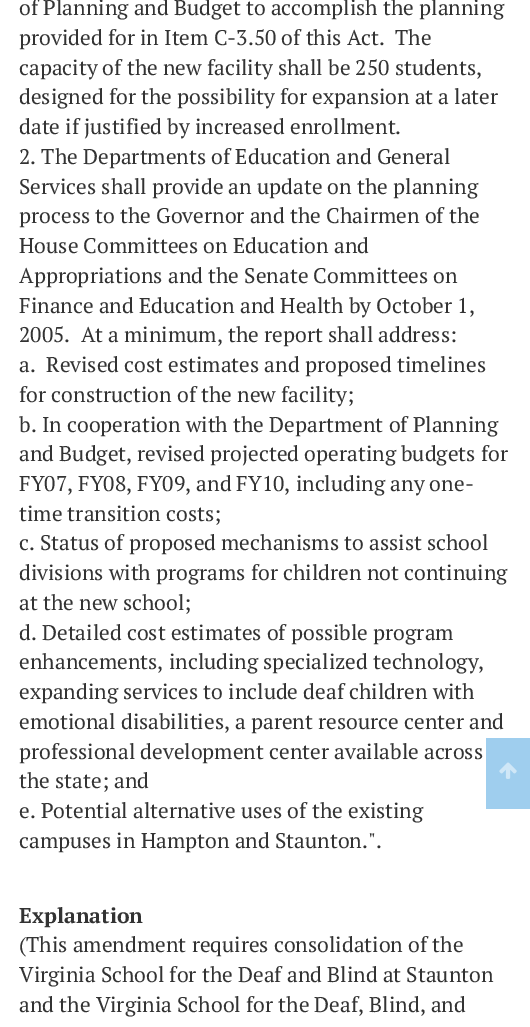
%!PS-Adobe-3.0
%%BoundingBox: 0 0 530 1027
%%LanguageLevel: 3
%%Pages: 1
%%EndComments
%%BeginProlog
/drawimage { 5 dict begin { /h /w /y /x /name } { exch def } forall
  gsave x y translate w h scale
  w h 8 [w 0 0 h 0 0] name (r) file false 3 colorimage grestore end } def
%%EndProlog
%%BeginSetup
<< /PageSize [530 1027] >> setpagedevice
%%EndSetup
%%Page: 1 1
0 1027 translate 1 -1 scale
4 setmiterlimit
1 setgray
0 0 530 1027 rectfill
0.624 0.808 0.933 setrgbcolor
486 738 44 71 rectfill
(images/1.raw) 499 762 18 17 drawimage
/PTSerif-Regular [21.25 0 0 -21.25 0 0] selectfont
0.2 setgray
19 15 moveto (of Planning and Budget to accomplish the planning) show
19 45 moveto (provided for in Item C-3.50 of this Act.  The) show
19 75 moveto (capacity of the new facility shall be 250 students,) show
19 104 moveto (designed for the possibility for expansion at a later) show
19 134 moveto (date if justified by increased enrollment.) show
19 164 moveto (2. The Departments of Education and General) show
19 194 moveto (Services shall provide an update on the planning) show
19 223 moveto (process to the Governor and the Chairmen of the) show
19 253 moveto (House Committees on Education and) show
19 283 moveto (Appropriations and the Senate Committees on) show
19 313 moveto (Finance and Education and Health by October 1,) show
19 342 moveto (2005.  At a minimum, the report shall address:) show
19 372 moveto (a.  Revised cost estimates and proposed timelines) show
19 402 moveto (for construction of the new facility;) show
19 432 moveto (b. In cooperation with the Department of Planning) show
19 461 moveto (and Budget, revised projected operating budgets for) show
19 491 moveto (FY07, FY08, FY09, and FY10, including any one-) show
19 521 moveto (time transition costs;) show
19 550 moveto (c. Status of proposed mechanisms to assist school) show
19 580 moveto (divisions with programs for children not continuing) show
19 610 moveto (at the new school;) show
19 640 moveto (d. Detailed cost estimates of possible program) show
19 669 moveto (enhancements, including specialized technology,) show
19 699 moveto (expanding services to include deaf children with) show
19 729 moveto (emotional disabilities, a parent resource center and) show
19 759 moveto (professional development center available across) show
19 788 moveto (the state; and) show
19 818 moveto (e. Potential alternative uses of the existing) show
19 848 moveto (campuses in Hampton and Staunton.".) show
/PTSerif-Bold [21.25 0 0 -21.25 0 0] selectfont
19 923 moveto (Explanation) show
/PTSerif-Regular [21.25 0 0 -21.25 0 0] selectfont
19 952 moveto (\(This amendment requires consolidation of the) show
19 982 moveto (Virginia School for the Deaf and Blind at Staunton) show
19 1012 moveto (and the Virginia School for the Deaf, Blind, and) show
showpage
%%EOF
